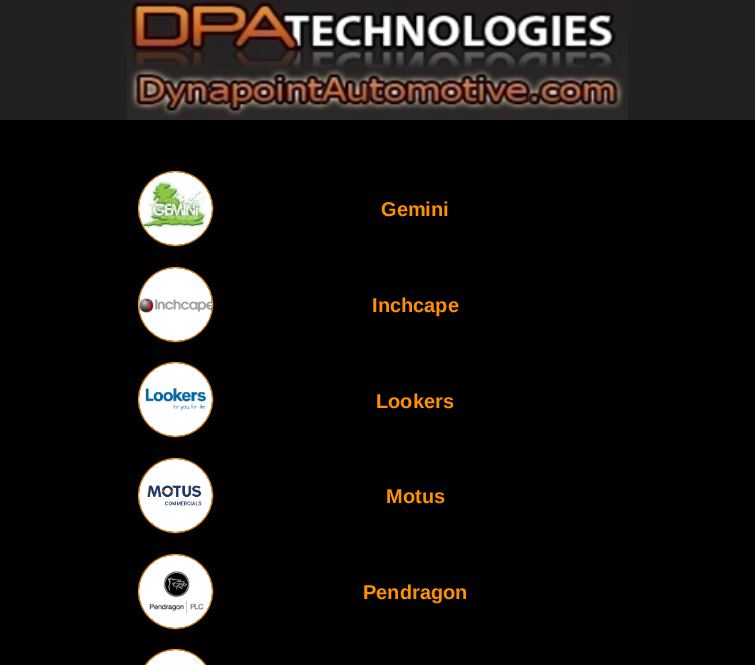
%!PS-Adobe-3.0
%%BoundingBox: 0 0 755 665
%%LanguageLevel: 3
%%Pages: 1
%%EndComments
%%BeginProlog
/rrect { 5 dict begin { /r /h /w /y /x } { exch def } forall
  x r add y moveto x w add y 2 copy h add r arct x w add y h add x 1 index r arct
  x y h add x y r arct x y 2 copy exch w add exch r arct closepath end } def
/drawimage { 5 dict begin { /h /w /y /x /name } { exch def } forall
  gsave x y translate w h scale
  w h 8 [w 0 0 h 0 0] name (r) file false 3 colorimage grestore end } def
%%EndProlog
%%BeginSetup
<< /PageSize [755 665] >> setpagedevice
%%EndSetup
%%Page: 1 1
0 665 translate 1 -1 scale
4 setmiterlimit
0 setgray
0 0 755 665 rectfill
0.129 setgray
0 0 755 120 rectfill
(images/1.raw) 127 0 501 120 drawimage
1 0.569 0 setrgbcolor
newpath 175.5 208.5 37 0 360 arc closepath stroke
(images/2.raw) 139 172 73 73 drawimage
newpath 175.5 304.5 37 0 360 arc closepath stroke
(images/3.raw) 139 268 73 73 drawimage
newpath 175.5 399.5 37 0 360 arc closepath stroke
(images/4.raw) 139 363 73 73 drawimage
newpath 175.5 495.5 37 0 360 arc closepath stroke
(images/5.raw) 139 459 73 73 drawimage
newpath 175.5 591.5 37 0 360 arc closepath stroke
(images/6.raw) 139 555 73 73 drawimage
138.5 649.5 74 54 37 rrect stroke
(images/7.raw) 146 650 59 15 drawimage
/LiberationSans-Bold [20 0 0 -20 0 0] selectfont
381 216 moveto (Gemini) show
372 312 moveto (Inchcape) show
376 408 moveto (Lookers) show
386 503 moveto (Motus) show
363 599 moveto (Pendragon) show
showpage
%%EOF
